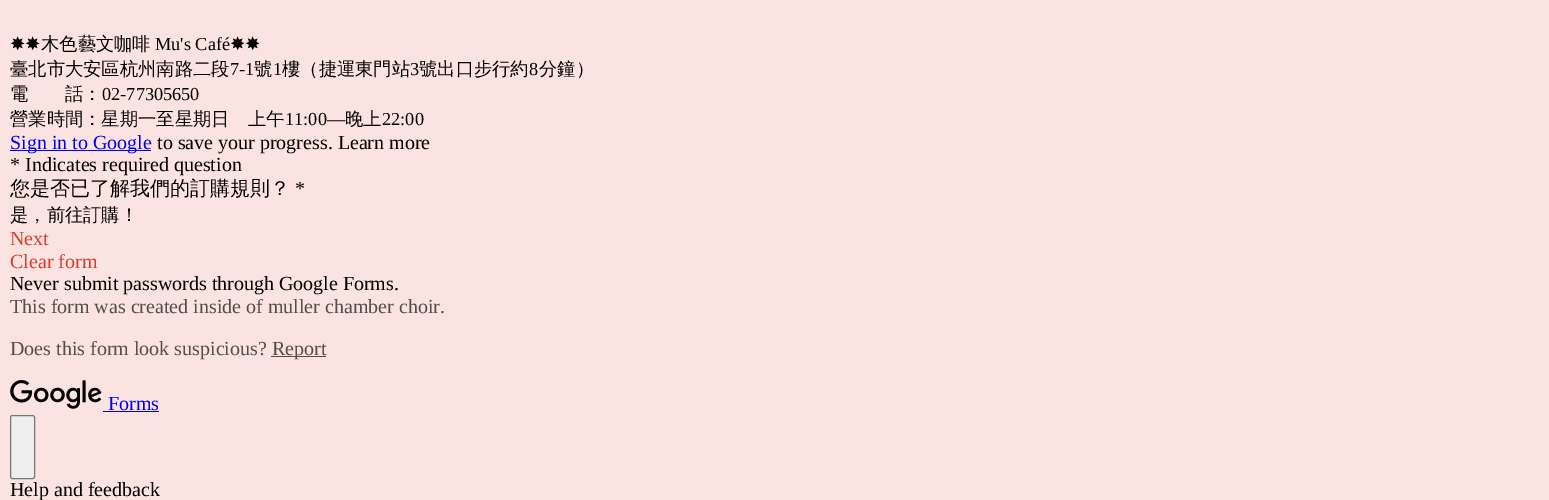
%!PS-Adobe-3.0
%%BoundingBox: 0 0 1549 500
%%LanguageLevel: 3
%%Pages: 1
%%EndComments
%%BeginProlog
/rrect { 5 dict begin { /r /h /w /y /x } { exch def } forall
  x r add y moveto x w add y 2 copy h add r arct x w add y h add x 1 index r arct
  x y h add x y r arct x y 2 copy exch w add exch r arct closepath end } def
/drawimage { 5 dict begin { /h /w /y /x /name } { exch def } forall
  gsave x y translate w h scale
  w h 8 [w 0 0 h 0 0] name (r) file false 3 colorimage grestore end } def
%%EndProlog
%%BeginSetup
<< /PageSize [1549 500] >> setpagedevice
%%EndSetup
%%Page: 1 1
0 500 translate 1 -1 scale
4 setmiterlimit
0.98 0.89 0.882 setrgbcolor
0 0 1549 500 rectfill
0 0 0.933 setrgbcolor
10 150 141 1 rectfill
0.333 0.302 0.302 setrgbcolor
271 356 55 1 rectfill
(images/1.raw) 10 380 92 29 drawimage
0 0 0.933 setrgbcolor
103 411 56 1 rectfill
0.937 setgray
10.5 415.5 24 63 2 rrect gsave fill grestore
0.463 setgray
stroke
/DejaVuSans-Regular [18.3 0 0 -18.3 0 0] selectfont
0 setgray
10 50 moveto (✸✸) show
/WenQuanYiZenHei-Medium [18.3 0 0 -18.3 0 0] selectfont
41 50 moveto (木色藝文咖啡) show
/LiberationSerif-Regular [18.3 0 0 -18.3 0 0] selectfont
155 50 moveto (Mu's Café) show
/DejaVuSans-Regular [18.3 0 0 -18.3 0 0] selectfont
230 50 moveto (✸✸) show
/WenQuanYiZenHei-Medium [18.3 0 0 -18.3 0 0] selectfont
10 75 moveto (臺北市大安區杭州南路二段) show
/LiberationSerif-Regular [18.3 0 0 -18.3 0 0] selectfont
230 75 moveto (7-1) show
/WenQuanYiZenHei-Medium [18.3 0 0 -18.3 0 0] selectfont
254 75 moveto (號) show
/LiberationSerif-Regular [18.3 0 0 -18.3 0 0] selectfont
273 75 moveto (1) show
/WenQuanYiZenHei-Medium [18.3 0 0 -18.3 0 0] selectfont
282 75 moveto (樓（捷運東門站) show
/LiberationSerif-Regular [18.3 0 0 -18.3 0 0] selectfont
410 75 moveto (3) show
/WenQuanYiZenHei-Medium [18.3 0 0 -18.3 0 0] selectfont
419 75 moveto (號出口步行約) show
/LiberationSerif-Regular [18.3 0 0 -18.3 0 0] selectfont
529 75 moveto (8) show
/WenQuanYiZenHei-Medium [18.3 0 0 -18.3 0 0] selectfont
539 75 moveto (分鐘）) show
10 100 moveto (電　　話：) show
/LiberationSerif-Regular [18.3 0 0 -18.3 0 0] selectfont
102 100 moveto (02-77305650) show
/WenQuanYiZenHei-Medium [18.3 0 0 -18.3 0 0] selectfont
10 125 moveto (營業時間：星期一至星期日　上午) show
/LiberationSerif-Regular [18.3 0 0 -18.3 0 0] selectfont
285 125 moveto (11:00—) show
/WenQuanYiZenHei-Medium [18.3 0 0 -18.3 0 0] selectfont
345 125 moveto (晚上) show
/LiberationSerif-Regular [18.3 0 0 -18.3 0 0] selectfont
382 125 moveto (22:00) show
/LiberationSerif-Regular [20 0 0 -20 0 0] selectfont
0 0 0.933 setrgbcolor
10 149 moveto (Sign in to Google) show
0 setgray
157 149 moveto (to save your progress. Learn more) show
10 171 moveto (* Indicates required question) show
/WenQuanYiZenHei-Medium [20 0 0 -20 0 0] selectfont
10 195 moveto (您是否已了解我們的訂購規則？) show
/LiberationSerif-Regular [20 0 0 -20 0 0] selectfont
295 195 moveto (*) show
/WenQuanYiZenHei-Medium [18.3 0 0 -18.3 0 0] selectfont
10 221 moveto (是，前往訂購！) show
/LiberationSerif-Regular [20 0 0 -20 0 0] selectfont
0.851 0.239 0.18 setrgbcolor
10 245 moveto (Next) show
10 268 moveto (Clear form) show
0 setgray
10 290 moveto (Never submit passwords through Google Forms.) show
0.333 0.302 0.302 setrgbcolor
10 313 moveto (This form was created inside of muller chamber choir.) show
10 355 moveto (Does this form look suspicious?) show
272 355 moveto (Report) show
0 0 0.933 setrgbcolor
108 410 moveto (Forms) show
0 setgray
10 496 moveto (Help and feedback) show
showpage
%%EOF
